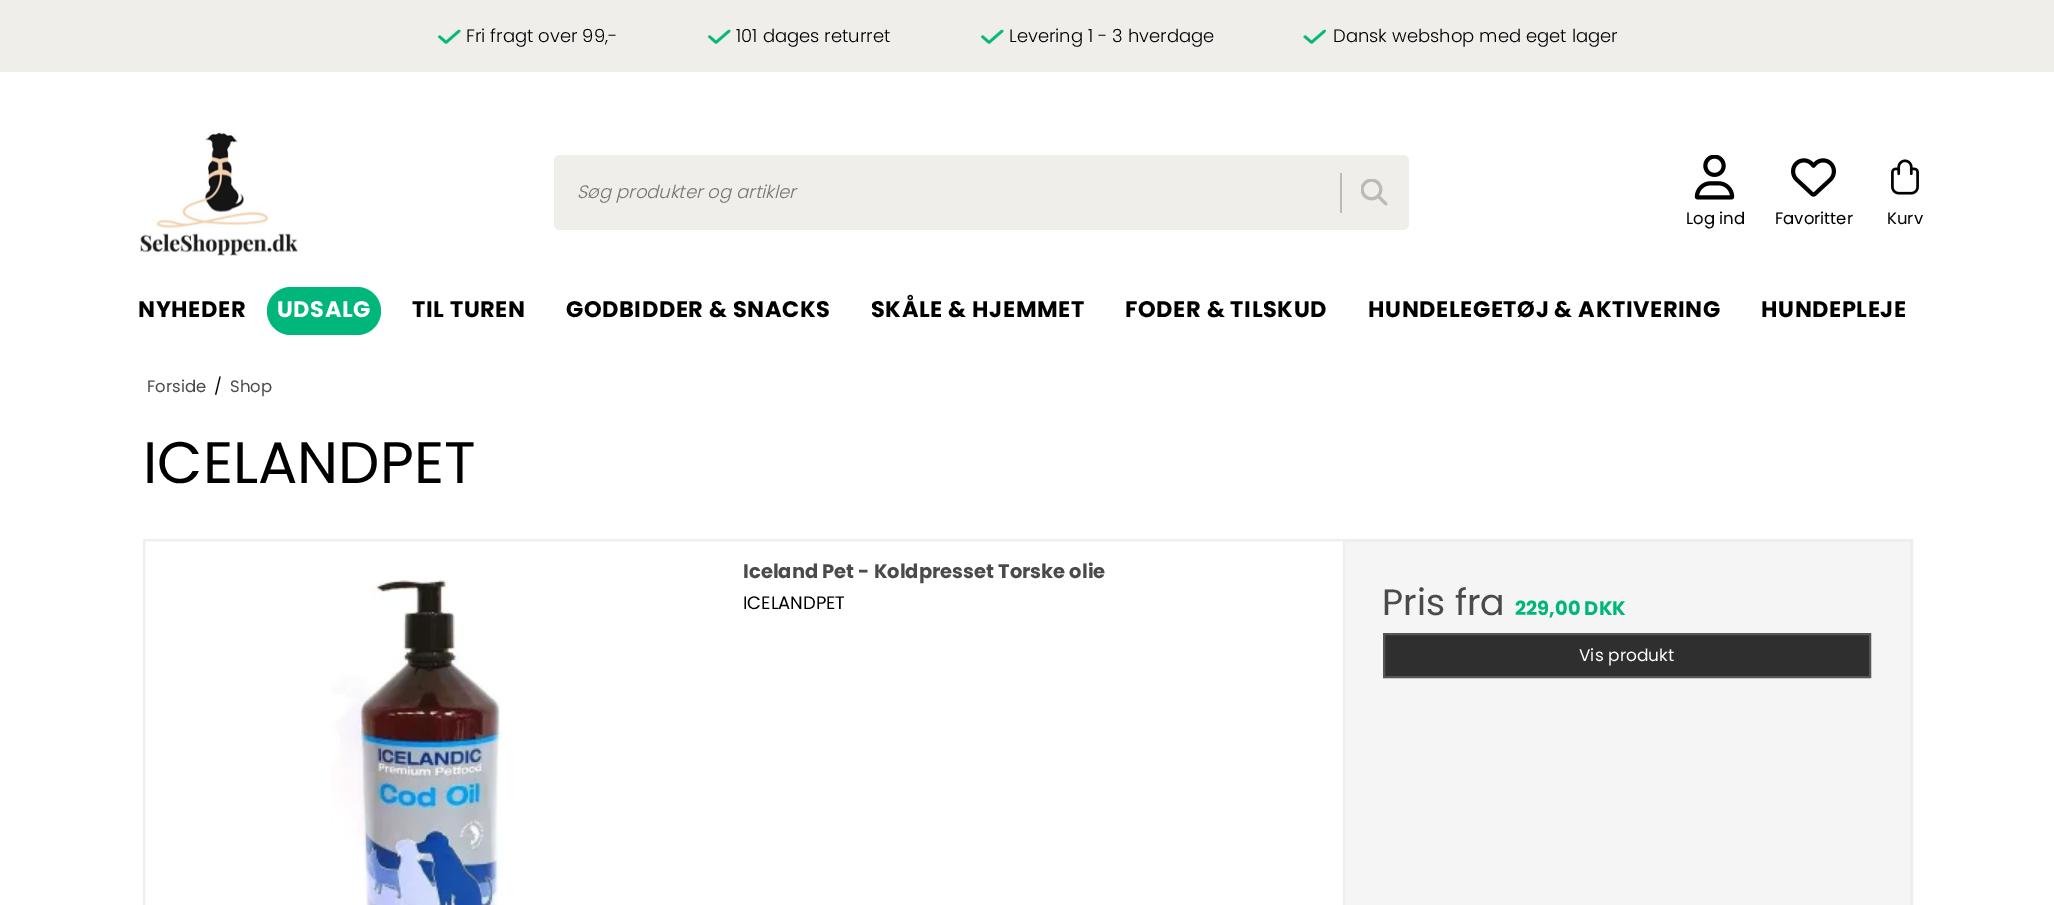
%!PS-Adobe-3.0
%%BoundingBox: 0 0 2054 905
%%LanguageLevel: 3
%%Pages: 1
%%EndComments
%%BeginProlog
/rrect { 5 dict begin { /r /h /w /y /x } { exch def } forall
  x r add y moveto x w add y 2 copy h add r arct x w add y h add x 1 index r arct
  x y h add x y r arct x y 2 copy exch w add exch r arct closepath end } def
/drawimage { 5 dict begin { /h /w /y /x /name } { exch def } forall
  gsave x y translate w h scale
  w h 8 [w 0 0 h 0 0] name (r) file false 3 colorimage grestore end } def
%%EndProlog
%%BeginSetup
<< /PageSize [2054 905] >> setpagedevice
%%EndSetup
%%Page: 1 1
0 905 translate 1 -1 scale
4 setmiterlimit
1 setgray
0 0 2054 905 rectfill
0.937 0.933 0.918 setrgbcolor
0 0 2054 72 rectfill
(images/1.raw) 438 29 23 16 drawimage
(images/1.raw) 708 29 23 16 drawimage
(images/1.raw) 981 29 23 16 drawimage
(images/2.raw) 1303 29 23 16 drawimage
(images/3.raw) 140 132 158 124 drawimage
newpath 560 155 moveto 1340 155 lineto 1340 230 lineto 560 230 lineto 556.5 230 554 227.5 554 224 curveto 554 161 lineto 554 157.5 556.5 155 560 155 curveto closepath fill
newpath 1340 155 moveto 1403 155 lineto 1406.5 155 1409 157.5 1409 161 curveto 1409 224 lineto 1409 227.5 1406.5 230 1403 230 curveto 1340 230 lineto closepath fill
0.733 0.729 0.718 setrgbcolor
1340 173 2 40 rectfill
(images/4.raw) 1361 179 27 27 drawimage
(images/5.raw) 1694 155 41 45 drawimage
(images/6.raw) 1791 158 45 39 drawimage
(images/7.raw) 1891 159 28 36 drawimage
0 0.714 0.478 setrgbcolor
267 287 114 48 24 rrect fill
0.933 setgray
2 setlinewidth
144 540 1768 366 rectstroke
(images/8.raw) 331 580 174 325 drawimage
0.961 setgray
1345 542 565 363 rectfill
0.933 setgray
1343 541 568 1 rectfill
1910 540 1 365 rectfill
1343 540 2 365 rectfill
0.184 setgray
newpath 1384 634 moveto 1870 634 lineto 1870 677 lineto 1384 677 lineto closepath gsave fill grestore
0.333 setgray
stroke
/Poppins-Light [18 0 0 -18 0 0] selectfont
0 setgray
466 42 moveto (Fri fragt over 99,-) show
736 42 moveto (101 dages returret) show
1009 42 moveto (Levering 1 - 3 hverdage) show
1333 42 moveto (Dansk webshop med eget lager) show
/Poppins-LightItalic [18 0 0 -18 0 0] selectfont
0.459 setgray
577 198 moveto (Søg produkter og artikler) show
/Poppins-Regular [16.5 0 0 -16.5 0 0] selectfont
0 setgray
1686 224 moveto (Log ind) show
1775 224 moveto (Favoritter) show
1887 224 moveto (Kurv) show
/Poppins-Bold [22.5 0 0 -22.5 0 0] selectfont
138 317 moveto 0.6 0 (NYHEDER) ashow
1 setgray
277 317 moveto 0.6 0 (UDSALG) ashow
0 setgray
412 317 moveto 0.6 0 (TIL TUREN) ashow
566 317 moveto 0.6 0 (GODBIDDER & SNACKS) ashow
871 317 moveto 0.6 0 (SKÅLE & HJEMMET) ashow
1125 317 moveto 0.6 0 (FODER & TILSKUD) ashow
1368 317 moveto 0.6 0 (HUNDELEGETØJ & AKTIVERING) ashow
1761 317 moveto 0.6 0 (HUNDEPLEJE) ashow
/Poppins-Regular [16.5 0 0 -16.5 0 0] selectfont
0.29 setgray
147 392 moveto (Forside) show
0 setgray
214 392 moveto (/) show
0.29 setgray
230 392 moveto (Shop) show
/Poppins-Regular [58.5 0 0 -58.5 0 0] selectfont
0 setgray
143 483 moveto (ICELANDPET) show
/Poppins-Bold [19.5 0 0 -19.5 0 0] selectfont
0.29 setgray
743 578 moveto (Iceland Pet - Koldpresset Torske olie) show
/Poppins-Regular [18 0 0 -18 0 0] selectfont
0 setgray
743 609 moveto (ICELANDPET) show
/Poppins-Regular [36.5 0 0 -36.5 0 0] selectfont
0.29 setgray
1382 615 moveto (Pris fra) show
/Poppins-Bold [19.5 0 0 -19.5 0 0] selectfont
0 0.714 0.478 setrgbcolor
1515 615 moveto (229,00 DKK) show
/Poppins-Regular [17 0 0 -17 0 0] selectfont
1 setgray
1579 661 moveto (Vis produkt) show
showpage
%%EOF
